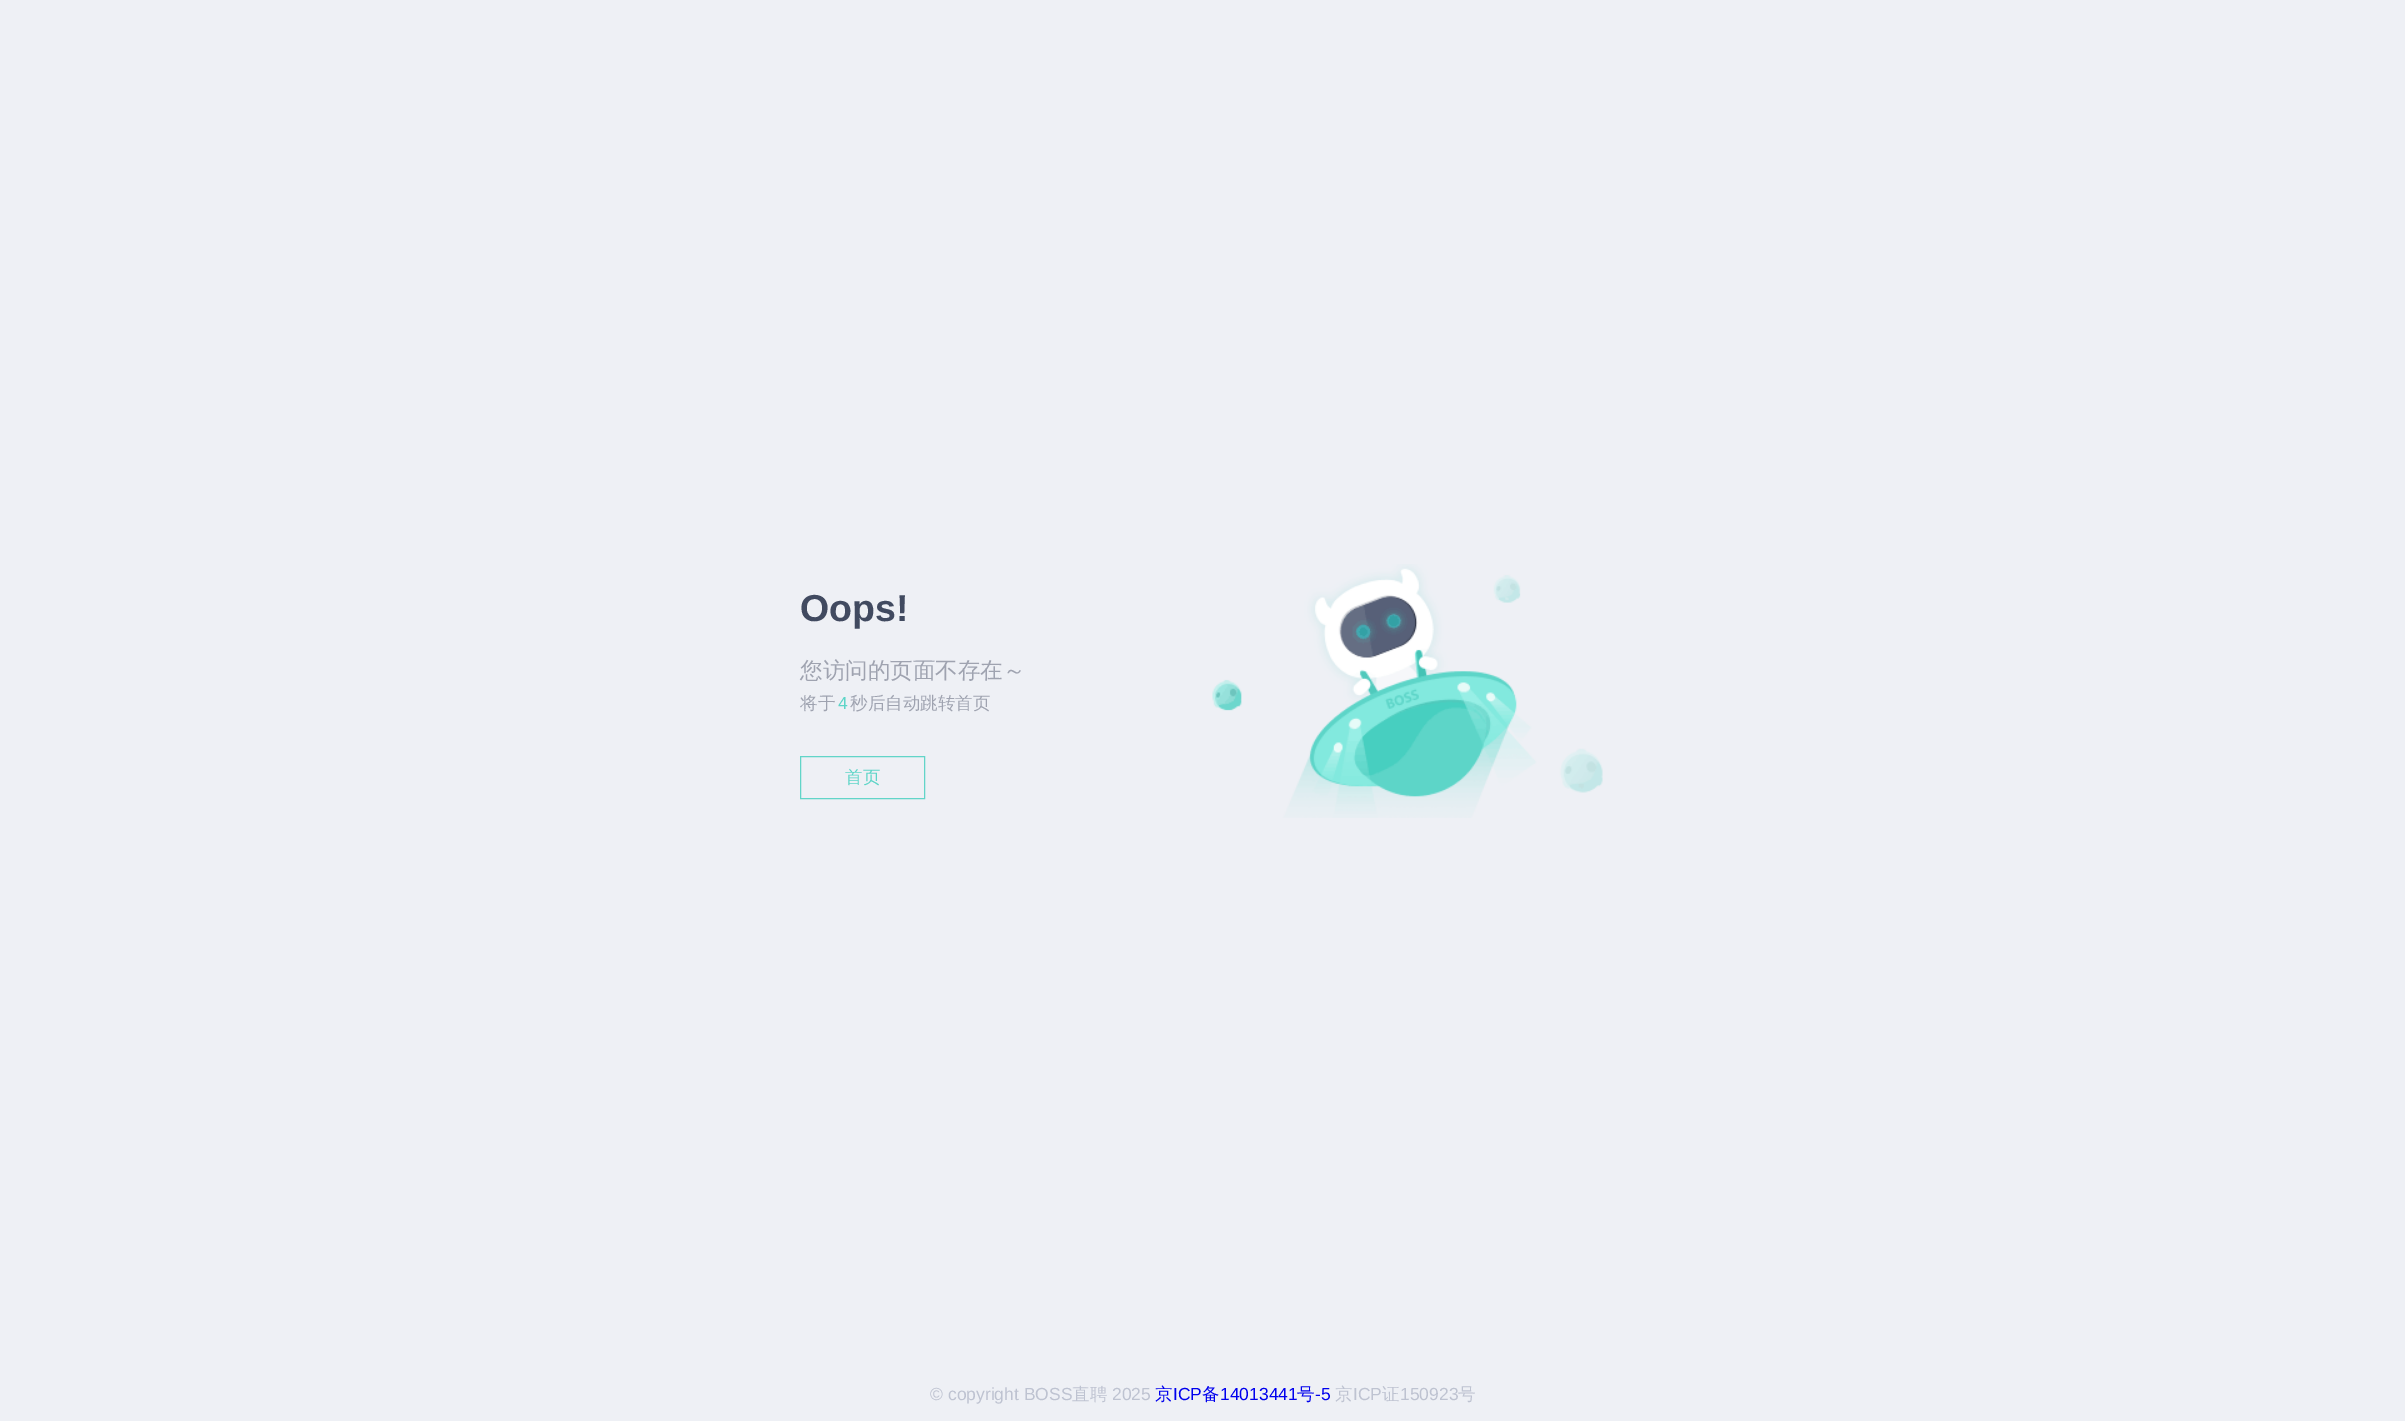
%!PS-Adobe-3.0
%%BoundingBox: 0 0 2405 1421
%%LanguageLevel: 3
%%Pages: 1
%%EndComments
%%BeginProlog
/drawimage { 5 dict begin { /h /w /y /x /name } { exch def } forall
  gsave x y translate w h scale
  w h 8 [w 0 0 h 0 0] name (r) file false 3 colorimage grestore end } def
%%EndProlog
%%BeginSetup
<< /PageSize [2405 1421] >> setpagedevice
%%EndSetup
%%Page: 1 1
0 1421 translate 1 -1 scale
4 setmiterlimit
0.933 0.941 0.961 setrgbcolor
0 0 2405 1421 rectfill
(images/1.raw) 1212 564 391 254 drawimage
0.384 0.835 0.784 setrgbcolor
800.5 756.5 124 42 rectstroke
/LiberationSans-Bold [37.5 0 0 -37.5 0 0] selectfont
0.255 0.29 0.376 setrgbcolor
800 621 moveto (Oops!) show
/WenQuanYiZenHei-Medium [22.5 0 0 -22.5 0 0] selectfont
0.624 0.639 0.69 setrgbcolor
800 678 moveto (您访问的页面不存在～) show
/WenQuanYiZenHei-Medium [17.5 0 0 -17.5 0 0] selectfont
800 709 moveto (将于) show
/LiberationSans-Regular [17.5 0 0 -17.5 0 0] selectfont
0.365 0.835 0.784 setrgbcolor
838 709 moveto (4) show
/WenQuanYiZenHei-Medium [17.5 0 0 -17.5 0 0] selectfont
0.624 0.639 0.69 setrgbcolor
850 709 moveto (秒后自动跳转首页) show
0.365 0.835 0.784 setrgbcolor
845 783 moveto (首页) show
/LiberationSans-Regular [17.5 0 0 -17.5 0 0] selectfont
0.745 0.765 0.82 setrgbcolor
930 1400 moveto (© copyright BOSS) show
/WenQuanYiZenHei-Medium [17.5 0 0 -17.5 0 0] selectfont
1072 1400 moveto (直聘) show
/LiberationSans-Regular [17.5 0 0 -17.5 0 0] selectfont
1112 1400 moveto (2025) show
/WenQuanYiZenHei-Medium [17.5 0 0 -17.5 0 0] selectfont
0 0 0.933 setrgbcolor
1155 1400 moveto (京) show
/LiberationSans-Regular [17.5 0 0 -17.5 0 0] selectfont
1173 1400 moveto (ICP) show
/WenQuanYiZenHei-Medium [17.5 0 0 -17.5 0 0] selectfont
1202 1400 moveto (备) show
/LiberationSans-Regular [17.5 0 0 -17.5 0 0] selectfont
1220 1400 moveto (14013441) show
/WenQuanYiZenHei-Medium [17.5 0 0 -17.5 0 0] selectfont
1297 1400 moveto (号) show
/LiberationSans-Regular [17.5 0 0 -17.5 0 0] selectfont
1315 1400 moveto (-5) show
/WenQuanYiZenHei-Medium [17.5 0 0 -17.5 0 0] selectfont
0.745 0.765 0.82 setrgbcolor
1335 1400 moveto (京) show
/LiberationSans-Regular [17.5 0 0 -17.5 0 0] selectfont
1353 1400 moveto (ICP) show
/WenQuanYiZenHei-Medium [17.5 0 0 -17.5 0 0] selectfont
1382 1400 moveto (证) show
/LiberationSans-Regular [17.5 0 0 -17.5 0 0] selectfont
1400 1400 moveto (150923) show
/WenQuanYiZenHei-Medium [17.5 0 0 -17.5 0 0] selectfont
1458 1400 moveto (号) show
showpage
%%EOF
